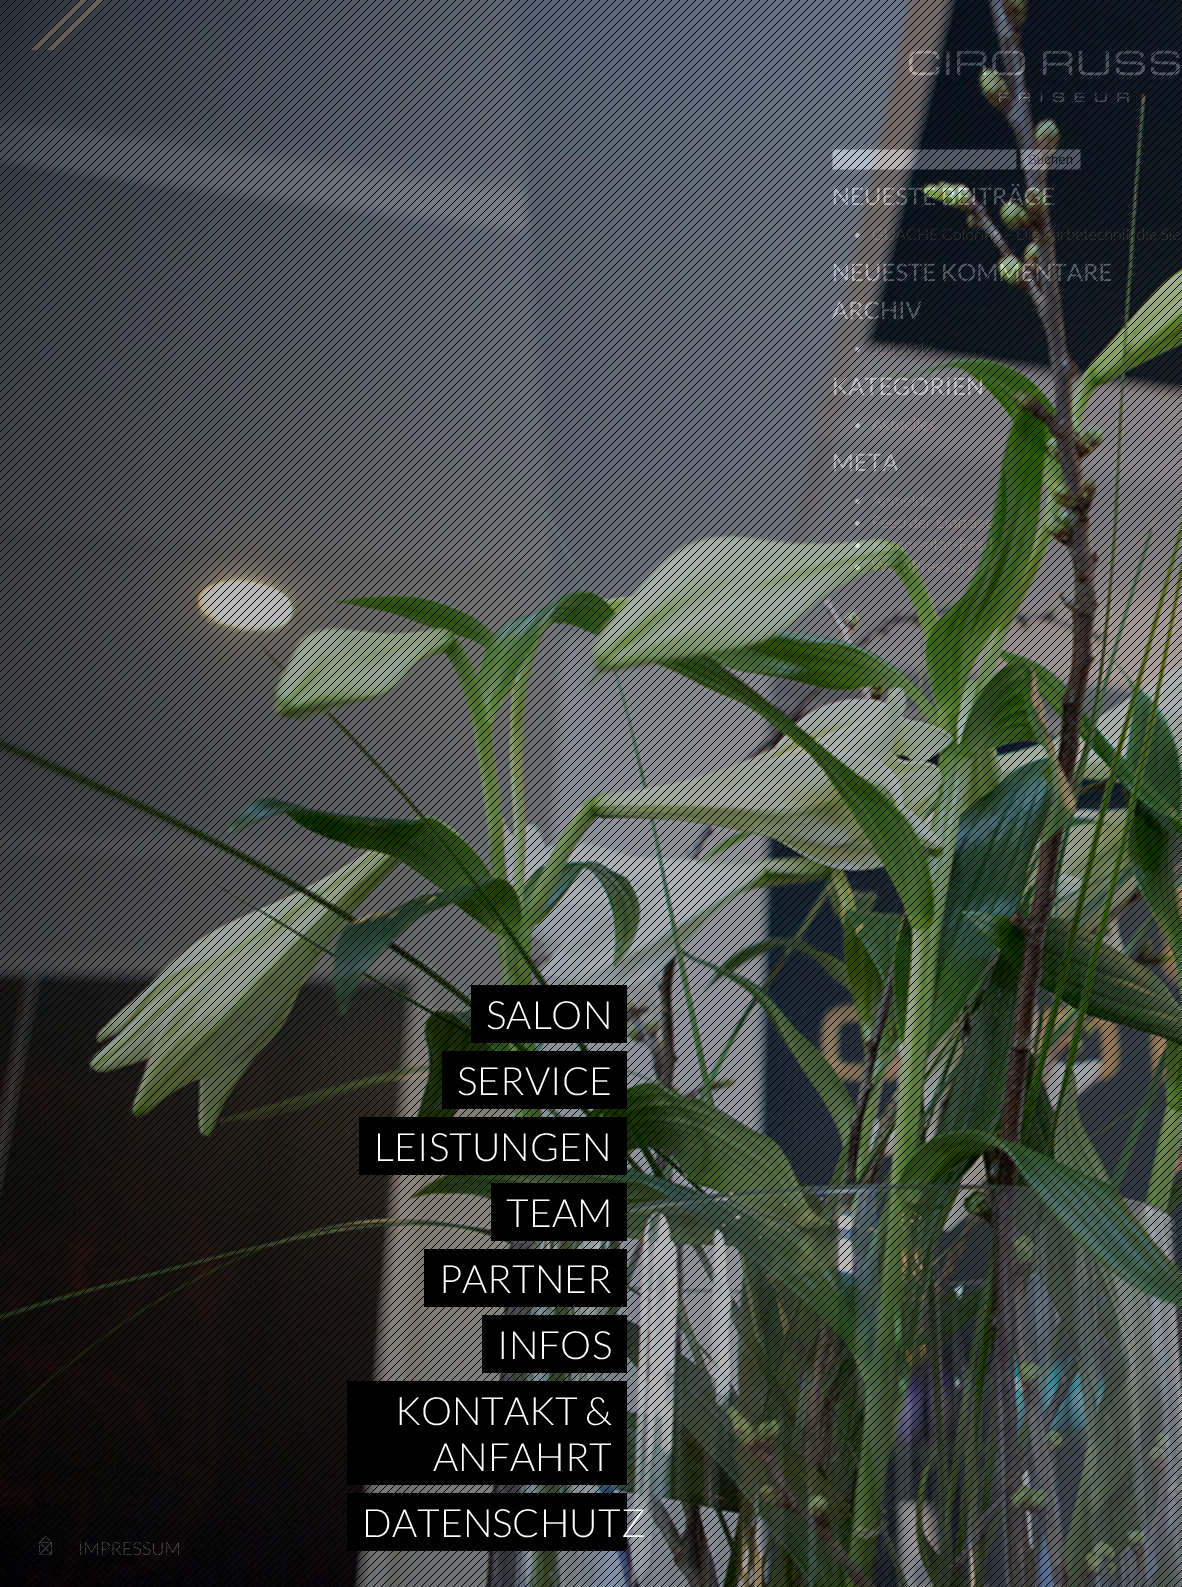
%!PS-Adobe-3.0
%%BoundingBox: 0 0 1182 1587
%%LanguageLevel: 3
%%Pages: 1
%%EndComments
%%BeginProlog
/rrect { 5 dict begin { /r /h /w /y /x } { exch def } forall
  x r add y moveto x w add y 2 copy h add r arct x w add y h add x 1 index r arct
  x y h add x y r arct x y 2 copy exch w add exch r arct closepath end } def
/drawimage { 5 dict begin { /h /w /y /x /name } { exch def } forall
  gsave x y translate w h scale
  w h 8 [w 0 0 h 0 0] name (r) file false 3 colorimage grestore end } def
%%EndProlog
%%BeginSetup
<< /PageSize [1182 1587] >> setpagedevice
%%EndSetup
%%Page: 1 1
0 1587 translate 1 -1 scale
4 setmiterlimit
1 setgray
0 0 1182 1587 rectfill
(images/3.raw) 909 50 271 52 drawimage
0.463 setgray
832.5 149.5 184 20 1.5 rrect stroke
1020.5 149.5 60 20 1.5 rrect stroke
(images/4.raw) 29 0 76 50 drawimage
(images/5.raw) 39 1536 13 19 drawimage
(images/1.raw) 0 0 1182 1587 drawimage
(images/2.raw) 0 0 1182 1587 drawimage
0 setgray
471 985 156 58 rectfill
442 1051 185 58 rectfill
359 1117 268 58 rectfill
491 1183 136 58 rectfill
424 1249 203 58 rectfill
482 1315 145 58 rectfill
347 1381 280 104 rectfill
347 1493 280 58 rectfill
/Lato-Light [39 0 0 -39 0 0] selectfont
1 setgray
486 1029 moveto (SALON) show
457 1095 moveto (SERVICE) show
374 1161 moveto (LEISTUNGEN) show
506 1227 moveto (TEAM) show
439 1293 moveto (PARTNER) show
497 1359 moveto (INFOS) show
395 1425 moveto (KONTAKT &) show
433 1471 moveto (ANFAHRT) show
362 1537 moveto (DATENSCHUTZ) show
showpage
%%EOF
